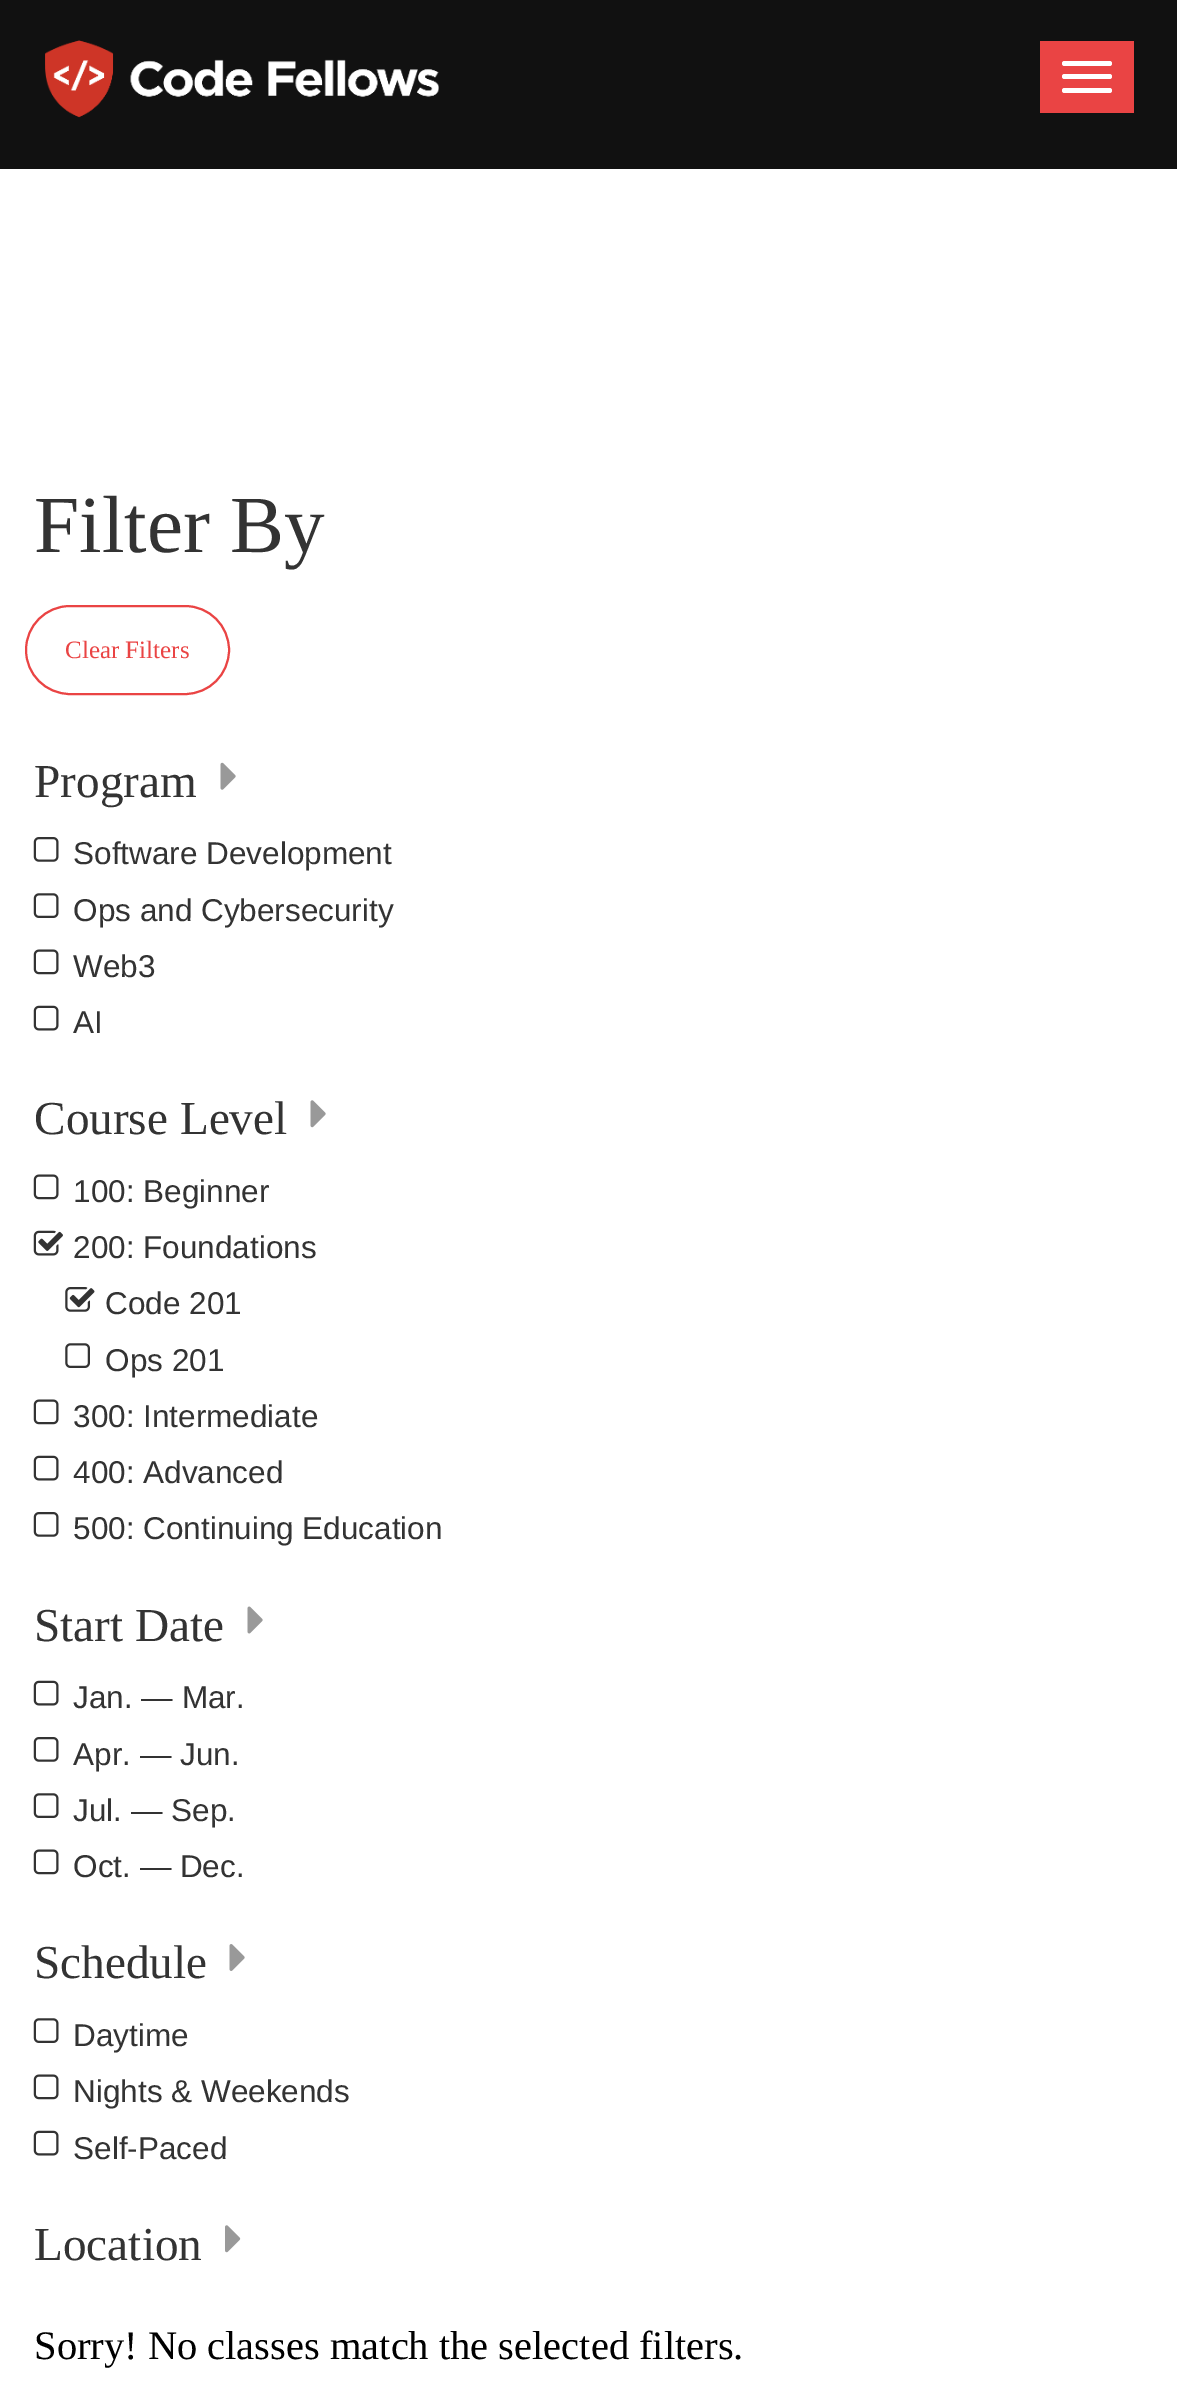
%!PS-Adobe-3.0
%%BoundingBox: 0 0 1177 2403
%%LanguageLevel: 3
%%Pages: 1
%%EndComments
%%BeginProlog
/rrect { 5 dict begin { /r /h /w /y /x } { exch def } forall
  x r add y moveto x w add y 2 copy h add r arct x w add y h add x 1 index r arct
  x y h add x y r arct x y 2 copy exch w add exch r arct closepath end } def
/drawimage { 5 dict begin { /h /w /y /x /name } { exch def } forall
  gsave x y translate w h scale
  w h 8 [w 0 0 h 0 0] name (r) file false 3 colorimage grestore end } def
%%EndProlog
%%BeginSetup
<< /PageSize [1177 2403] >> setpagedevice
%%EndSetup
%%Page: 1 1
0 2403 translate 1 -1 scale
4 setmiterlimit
1 setgray
0 0 1177 2403 rectfill
0.067 setgray
0 0 1177 169 rectfill
(images/1.raw) 45 40 394 78 drawimage
0.918 0.267 0.267 setrgbcolor
1040 41 94 72 rectfill
1 setgray
1062 61 50 5 2.5 rrect fill
1062 74 50 5 2.5 rrect fill
1062 88 50 5 2.5 rrect fill
0.918 0.267 0.267 setrgbcolor
2 setlinewidth
26 606 203 88 44 rrect stroke
(images/2.raw) 220 762 16 28 drawimage
(images/3.raw) 33 837 26 25 drawimage
(images/4.raw) 33 893 26 25 drawimage
(images/5.raw) 33 949 26 26 drawimage
(images/6.raw) 33 1005 26 26 drawimage
(images/7.raw) 310 1100 16 28 drawimage
(images/5.raw) 33 1174 26 26 drawimage
(images/8.raw) 33 1230 30 26 drawimage
(images/9.raw) 65 1287 30 25 drawimage
(images/10.raw) 65 1343 25 25 drawimage
(images/5.raw) 33 1399 26 26 drawimage
(images/6.raw) 33 1455 26 26 drawimage
(images/3.raw) 33 1512 26 25 drawimage
(images/11.raw) 247 1606 16 28 drawimage
(images/6.raw) 33 1680 26 26 drawimage
(images/3.raw) 33 1737 26 25 drawimage
(images/4.raw) 33 1793 26 25 drawimage
(images/5.raw) 33 1849 26 26 drawimage
(images/12.raw) 229 1944 16 27 drawimage
(images/4.raw) 33 2018 26 25 drawimage
(images/5.raw) 33 2074 26 26 drawimage
(images/6.raw) 33 2130 26 26 drawimage
(images/13.raw) 225 2225 16 28 drawimage
/LiberationSerif-Regular [81 0 0 -81 0 0] selectfont
0.2 setgray
34 552 moveto (Filter By) show
/LiberationSerif-Regular [25 0 0 -25 0 0] selectfont
0.918 0.267 0.267 setrgbcolor
65 658 moveto (Clear Filters) show
/LiberationSerif-Regular [47.25 0 0 -47.25 0 0] selectfont
0.2 setgray
34 797 moveto (Program) show
/LiberationSans-Regular [31.5 0 0 -31.5 0 0] selectfont
73 864 moveto (Software Development) show
73 921 moveto (Ops and Cybersecurity) show
73 977 moveto (Web3) show
73 1033 moveto (AI) show
/LiberationSerif-Regular [47.25 0 0 -47.25 0 0] selectfont
34 1134 moveto (Course Level) show
/LiberationSans-Regular [31.5 0 0 -31.5 0 0] selectfont
73 1202 moveto (100: Beginner) show
73 1258 moveto (200: Foundations) show
105 1314 moveto (Code 201) show
105 1371 moveto (Ops 201) show
73 1427 moveto (300: Intermediate) show
73 1483 moveto (400: Advanced) show
73 1539 moveto (500: Continuing Education) show
/LiberationSerif-Regular [47.25 0 0 -47.25 0 0] selectfont
34 1641 moveto (Start Date) show
/LiberationSans-Regular [31.5 0 0 -31.5 0 0] selectfont
73 1708 moveto (Jan. — Mar.) show
73 1765 moveto (Apr. — Jun.) show
73 1821 moveto (Jul. — Sep.) show
73 1877 moveto (Oct. — Dec.) show
/LiberationSerif-Regular [47.25 0 0 -47.25 0 0] selectfont
34 1978 moveto (Schedule) show
/LiberationSans-Regular [31.5 0 0 -31.5 0 0] selectfont
73 2046 moveto (Daytime) show
73 2102 moveto (Nights & Weekends) show
73 2159 moveto (Self-Paced) show
/LiberationSerif-Regular [47.25 0 0 -47.25 0 0] selectfont
34 2260 moveto (Location) show
/LiberationSerif-Regular [40.5 0 0 -40.5 0 0] selectfont
0 setgray
34 2359 moveto (Sorry! No classes match the selected filters.) show
showpage
%%EOF
